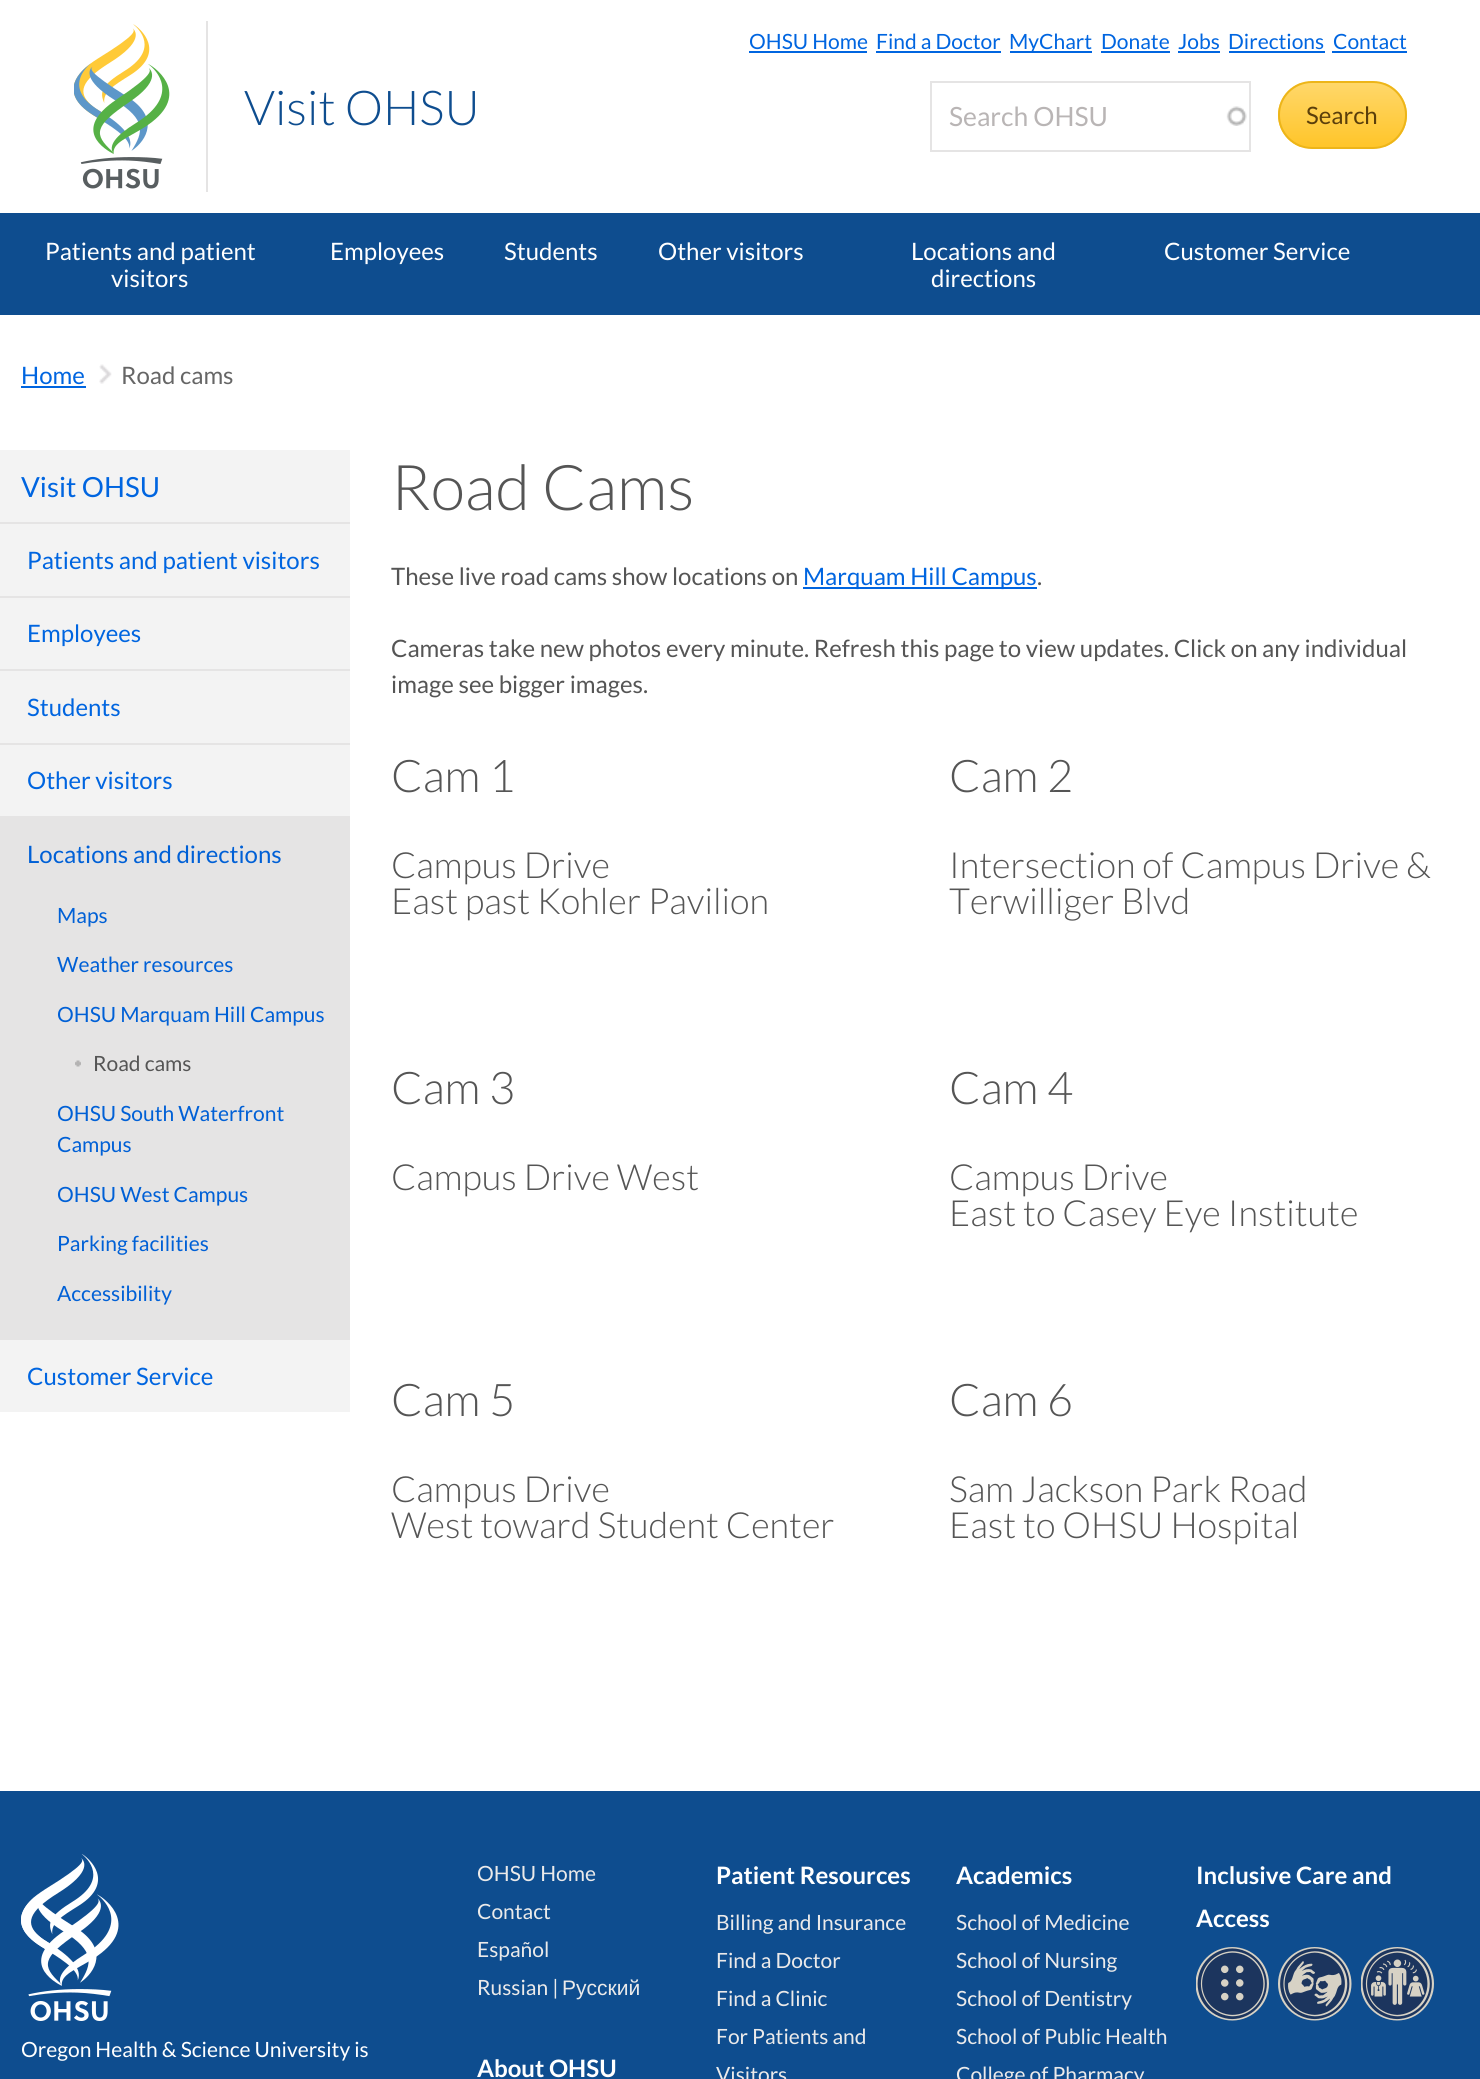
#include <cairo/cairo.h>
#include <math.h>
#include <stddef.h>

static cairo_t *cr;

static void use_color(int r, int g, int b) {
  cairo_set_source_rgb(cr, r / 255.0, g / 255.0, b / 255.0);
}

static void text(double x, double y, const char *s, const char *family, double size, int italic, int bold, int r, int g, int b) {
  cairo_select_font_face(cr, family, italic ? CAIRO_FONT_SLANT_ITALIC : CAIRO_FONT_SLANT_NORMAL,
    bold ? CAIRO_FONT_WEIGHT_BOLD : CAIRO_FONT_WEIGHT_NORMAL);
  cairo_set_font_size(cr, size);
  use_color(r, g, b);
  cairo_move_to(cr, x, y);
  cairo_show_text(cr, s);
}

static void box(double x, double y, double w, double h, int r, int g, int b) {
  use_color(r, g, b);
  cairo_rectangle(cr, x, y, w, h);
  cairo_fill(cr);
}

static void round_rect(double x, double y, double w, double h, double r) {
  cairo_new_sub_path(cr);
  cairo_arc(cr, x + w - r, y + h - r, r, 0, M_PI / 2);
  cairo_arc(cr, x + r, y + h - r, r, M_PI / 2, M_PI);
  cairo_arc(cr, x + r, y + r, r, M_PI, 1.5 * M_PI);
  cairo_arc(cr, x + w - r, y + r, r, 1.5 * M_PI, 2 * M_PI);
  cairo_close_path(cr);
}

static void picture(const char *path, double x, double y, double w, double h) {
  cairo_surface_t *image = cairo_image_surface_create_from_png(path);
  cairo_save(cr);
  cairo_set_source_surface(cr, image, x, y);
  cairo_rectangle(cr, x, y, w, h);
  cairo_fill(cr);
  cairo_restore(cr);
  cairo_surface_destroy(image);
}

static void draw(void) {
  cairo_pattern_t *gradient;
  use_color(14, 77, 143);
  cairo_paint(cr);
  box(0, 0, 1480, 213, 255, 255, 255);
  picture("img_01.png", 74, 24, 96, 165);
  box(206, 21, 2, 171, 229, 228, 228);
  box(749, 51, 118, 2, 0, 101, 224);
  box(876, 51, 125, 2, 0, 101, 224);
  box(1010, 51, 82, 2, 0, 101, 224);
  box(1101, 51, 69, 2, 0, 101, 224);
  box(1178, 51, 42, 2, 0, 101, 224);
  box(1229, 51, 96, 2, 0, 101, 224);
  box(1332, 51, 75, 2, 0, 101, 224);
  picture("img_02.png", 1226, 106, 21, 20);
  cairo_rectangle(cr, 931, 82, 319, 69);
  use_color(229, 228, 228);
  cairo_stroke(cr);
  cairo_save(cr);
  round_rect(1278, 81, 129, 68, 34);
  cairo_clip(cr);
  gradient = cairo_pattern_create_linear(1343, 83, 1343, 147);
  cairo_pattern_add_color_stop_rgba(gradient, 0, 1, 0.843, 0.412, 1);
  cairo_pattern_add_color_stop_rgba(gradient, 1, 1, 0.773, 0.161, 1);
  cairo_set_source(cr, gradient);
  cairo_pattern_destroy(gradient);
  cairo_rectangle(cr, 1278, 83, 129, 64);
  cairo_fill(cr);
  cairo_restore(cr);
  round_rect(1279, 82, 127, 66, 33);
  use_color(237, 181, 25);
  cairo_stroke(cr);
  box(0, 315, 1480, 1476, 255, 255, 255);
  box(21, 386, 65, 2, 0, 101, 224);
  picture("img_03.png", 99, 364, 13, 20);
  box(0, 450, 350, 72, 243, 243, 243);
  box(0, 522, 350, 2, 229, 228, 228);
  box(0, 524, 350, 72, 243, 243, 243);
  box(0, 598, 350, 71, 243, 243, 243);
  box(0, 596, 350, 2, 229, 228, 228);
  box(0, 671, 350, 72, 243, 243, 243);
  box(0, 669, 350, 2, 229, 228, 228);
  box(0, 745, 350, 71, 243, 243, 243);
  box(0, 743, 350, 2, 229, 228, 228);
  box(0, 816, 350, 524, 229, 228, 228);
  picture("img_04.png", 75, 1060, 6, 7);
  box(0, 1340, 350, 72, 243, 243, 243);
  box(803, 587, 234, 2, 0, 101, 224);
  picture("img_05.png", 21, 1854, 98, 167);
  picture("img_06.png", 1196, 1947, 73, 74);
  picture("img_07.png", 1278, 1947, 74, 74);
  picture("img_08.png", 1361, 1947, 73, 74);
  text(244, 125, "Visit OHSU", "Lato Light", 48, 0, 0, 14, 77, 143);
  text(749, 49, "OHSU Home", "Lato", 21, 0, 0, 0, 101, 224);
  text(876, 49, "Find a Doctor", "Lato", 21, 0, 0, 0, 101, 224);
  text(1009, 49, "MyChart", "Lato", 21, 0, 0, 0, 101, 224);
  text(1101, 49, "Donate", "Lato", 21, 0, 0, 0, 101, 224);
  text(1178, 49, "Jobs", "Lato", 21, 0, 0, 0, 101, 224);
  text(1228, 49, "Directions", "Lato", 21, 0, 0, 0, 101, 224);
  text(1333, 49, "Contact", "Lato", 21, 0, 0, 0, 101, 224);
  text(949, 126, "Search OHSU", "Lato", 26.5, 0, 0, 185, 181, 181);
  text(1306, 124, "Search", "Lato", 24, 0, 0, 91, 63, 11);
  text(45, 260, "Patients and patient", "Lato", 24, 0, 0, 255, 255, 255);
  text(111, 287, "visitors", "Lato", 24, 0, 0, 255, 255, 255);
  text(330, 260, "Employees", "Lato", 24, 0, 0, 255, 255, 255);
  text(504, 260, "Students", "Lato", 24, 0, 0, 255, 255, 255);
  text(658, 260, "Other visitors", "Lato", 24, 0, 0, 255, 255, 255);
  text(911, 260, "Locations and", "Lato", 24, 0, 0, 255, 255, 255);
  text(931, 287, "directions", "Lato", 24, 0, 0, 255, 255, 255);
  text(1164, 260, "Customer Service", "Lato", 24, 0, 0, 255, 255, 255);
  text(21, 384, "Home", "Lato", 24, 0, 0, 0, 101, 224);
  text(121, 384, "Road cams", "Lato", 24, 0, 0, 102, 102, 102);
  text(21, 497, "Visit OHSU", "Lato", 27.75, 0, 0, 0, 101, 224);
  text(27, 569, "Patients and patient visitors", "Lato", 24, 0, 0, 0, 101, 224);
  text(27, 642, "Employees", "Lato", 24, 0, 0, 0, 101, 224);
  text(27, 716, "Students", "Lato", 24, 0, 0, 0, 101, 224);
  text(27, 789, "Other visitors", "Lato", 24, 0, 0, 0, 101, 224);
  text(27, 863, "Locations and directions", "Lato", 24, 0, 0, 0, 96, 214);
  text(57, 923, "Maps", "Lato", 21, 0, 0, 0, 96, 214);
  text(57, 972, "Weather resources", "Lato", 21, 0, 0, 0, 96, 214);
  text(57, 1022, "OHSU Marquam Hill Campus", "Lato", 21, 0, 0, 0, 96, 214);
  text(93, 1071, "Road cams", "Lato", 21, 0, 0, 85, 85, 85);
  text(57, 1121, "OHSU South Waterfront", "Lato", 21, 0, 0, 0, 96, 214);
  text(57, 1152, "Campus", "Lato", 21, 0, 0, 0, 96, 214);
  text(57, 1202, "OHSU West Campus", "Lato", 21, 0, 0, 0, 96, 214);
  text(57, 1251, "Parking facilities", "Lato", 21, 0, 0, 0, 96, 214);
  text(57, 1301, "Accessibility", "Lato", 21, 0, 0, 0, 96, 214);
  text(27, 1385, "Customer Service", "Lato", 24, 0, 0, 0, 101, 224);
  text(391, 510, "Road Cams", "Lato Light", 63, 0, 0, 85, 85, 85);
  text(391, 585, "These live road cams show locations on", "Lato", 24, 0, 0, 85, 85, 85);
  text(803, 585, "Marquam Hill Campus", "Lato", 24, 0, 0, 0, 101, 224);
  text(1037, 585, ".", "Lato", 24, 0, 0, 85, 85, 85);
  text(391, 657, "Cameras take new photos every minute. Refresh this page to view updates. Click on any individual", "Lato", 24, 0, 0, 85, 85, 85);
  text(391, 693, "image see bigger images.", "Lato", 24, 0, 0, 85, 85, 85);
  text(391, 792, "Cam 1", "Lato Light", 45, 0, 0, 85, 85, 85);
  text(391, 878, "Campus Drive", "Lato Light", 36, 0, 0, 85, 85, 85);
  text(391, 914, "East past Kohler Pavilion", "Lato Light", 36, 0, 0, 85, 85, 85);
  text(949, 792, "Cam 2", "Lato Light", 45, 0, 0, 85, 85, 85);
  text(949, 878, "Intersection of Campus Drive &", "Lato Light", 36, 0, 0, 85, 85, 85);
  text(949, 914, "Terwilliger Blvd", "Lato Light", 36, 0, 0, 85, 85, 85);
  text(391, 1104, "Cam 3", "Lato Light", 45, 0, 0, 85, 85, 85);
  text(391, 1190, "Campus Drive West", "Lato Light", 36, 0, 0, 85, 85, 85);
  text(949, 1104, "Cam 4", "Lato Light", 45, 0, 0, 85, 85, 85);
  text(949, 1190, "Campus Drive", "Lato Light", 36, 0, 0, 85, 85, 85);
  text(949, 1226, "East to Casey Eye Institute", "Lato Light", 36, 0, 0, 85, 85, 85);
  text(391, 1416, "Cam 5", "Lato Light", 45, 0, 0, 85, 85, 85);
  text(391, 1502, "Campus Drive", "Lato Light", 36, 0, 0, 85, 85, 85);
  text(391, 1538, "West toward Student Center", "Lato Light", 36, 0, 0, 85, 85, 85);
  text(949, 1416, "Cam 6", "Lato Light", 45, 0, 0, 85, 85, 85);
  text(949, 1502, "Sam Jackson Park Road", "Lato Light", 36, 0, 0, 85, 85, 85);
  text(949, 1538, "East to OHSU Hospital", "Lato Light", 36, 0, 0, 85, 85, 85);
  text(21, 2057, "Oregon Health & Science University is", "Lato", 21, 0, 0, 255, 255, 255);
  text(477, 1881, "OHSU Home", "Lato", 21, 0, 0, 235, 234, 234);
  text(477, 1919, "Contact", "Lato", 21, 0, 0, 235, 234, 234);
  text(477, 1957, "Español", "Lato", 21, 0, 0, 235, 234, 234);
  text(477, 1995, "Russian |", "Lato", 21, 0, 0, 235, 234, 234);
  text(562, 1995, "Русский", "Liberation Sans", 21, 0, 0, 235, 234, 234);
  text(477, 2077, "About OHSU", "Lato", 24, 0, 1, 255, 255, 255);
  text(716, 1884, "Patient Resources", "Lato", 24, 0, 1, 255, 255, 255);
  text(716, 1930, "Billing and Insurance", "Lato", 21, 0, 0, 235, 234, 234);
  text(716, 1968, "Find a Doctor", "Lato", 21, 0, 0, 235, 234, 234);
  text(716, 2006, "Find a Clinic", "Lato", 21, 0, 0, 235, 234, 234);
  text(716, 2044, "For Patients and", "Lato", 21, 0, 0, 235, 234, 234);
  text(716, 2082, "Visitors", "Lato", 21, 0, 0, 235, 234, 234);
  text(956, 1884, "Academics", "Lato", 24, 0, 1, 255, 255, 255);
  text(956, 1930, "School of Medicine", "Lato", 21, 0, 0, 235, 234, 234);
  text(956, 1968, "School of Nursing", "Lato", 21, 0, 0, 235, 234, 234);
  text(956, 2006, "School of Dentistry", "Lato", 21, 0, 0, 235, 234, 234);
  text(956, 2044, "School of Public Health", "Lato", 21, 0, 0, 235, 234, 234);
  text(956, 2082, "College of Pharmacy", "Lato", 21, 0, 0, 235, 234, 234);
  text(1196, 1884, "Inclusive Care and", "Lato", 24, 0, 1, 255, 255, 255);
  text(1196, 1927, "Access", "Lato", 24, 0, 1, 255, 255, 255);
}

int main(void) {
  cairo_surface_t *surface = cairo_image_surface_create(CAIRO_FORMAT_RGB24, 1480, 2079);
  cr = cairo_create(surface);
  cairo_font_options_t *options = cairo_font_options_create();
  cairo_font_options_set_hint_metrics(options, CAIRO_HINT_METRICS_OFF);
  cairo_font_options_set_hint_style(options, CAIRO_HINT_STYLE_NONE);
  cairo_set_font_options(cr, options);
  cairo_set_miter_limit(cr, 4);
  draw();
  cairo_surface_write_to_png(surface, "out.png");
  cairo_font_options_destroy(options);
  cairo_destroy(cr);
  cairo_surface_destroy(surface);
  return 0;
}
